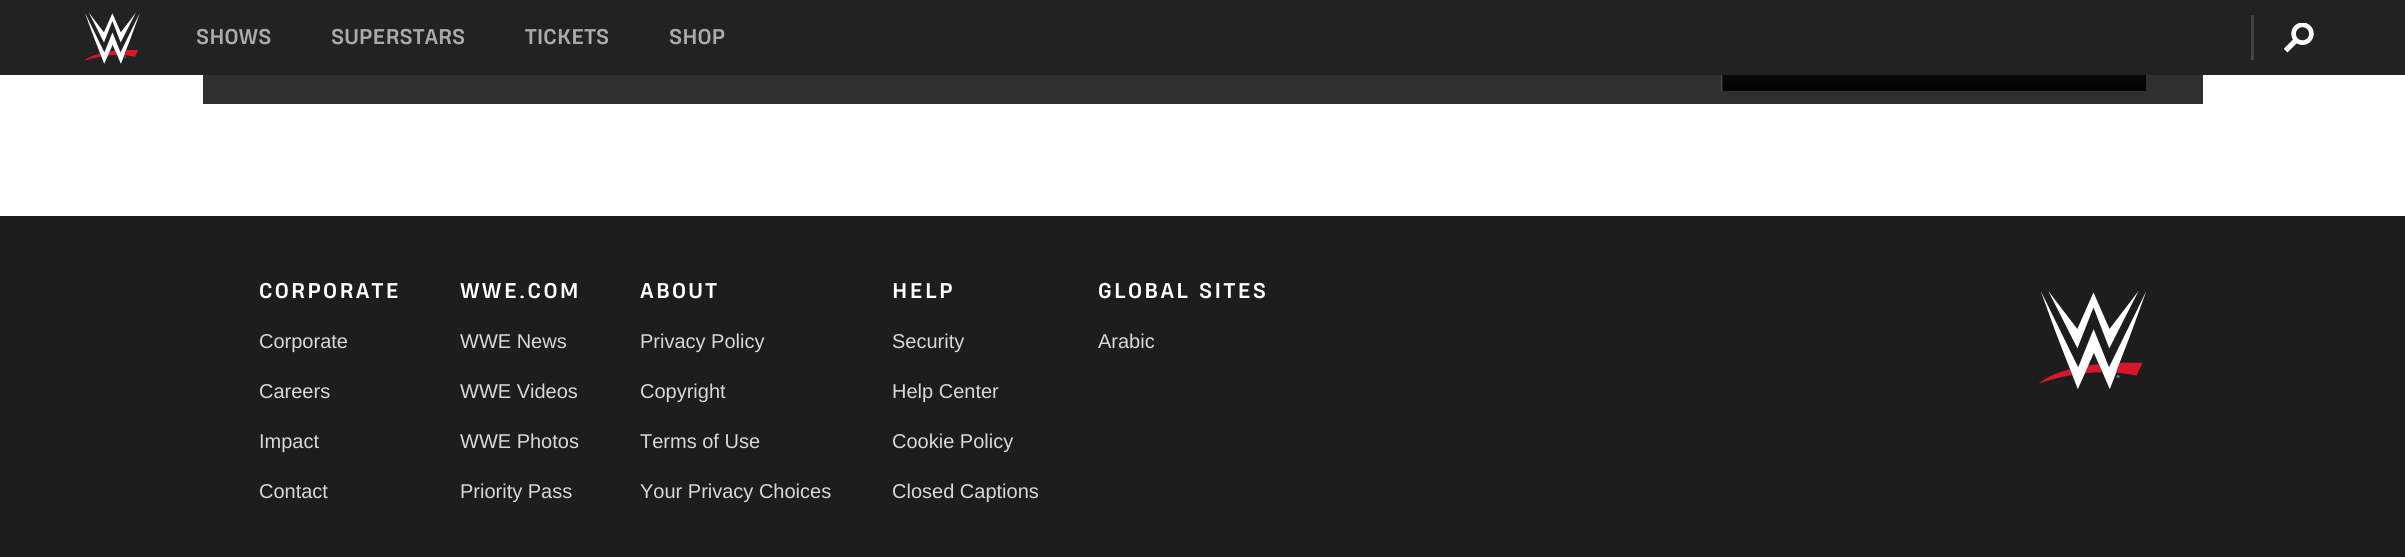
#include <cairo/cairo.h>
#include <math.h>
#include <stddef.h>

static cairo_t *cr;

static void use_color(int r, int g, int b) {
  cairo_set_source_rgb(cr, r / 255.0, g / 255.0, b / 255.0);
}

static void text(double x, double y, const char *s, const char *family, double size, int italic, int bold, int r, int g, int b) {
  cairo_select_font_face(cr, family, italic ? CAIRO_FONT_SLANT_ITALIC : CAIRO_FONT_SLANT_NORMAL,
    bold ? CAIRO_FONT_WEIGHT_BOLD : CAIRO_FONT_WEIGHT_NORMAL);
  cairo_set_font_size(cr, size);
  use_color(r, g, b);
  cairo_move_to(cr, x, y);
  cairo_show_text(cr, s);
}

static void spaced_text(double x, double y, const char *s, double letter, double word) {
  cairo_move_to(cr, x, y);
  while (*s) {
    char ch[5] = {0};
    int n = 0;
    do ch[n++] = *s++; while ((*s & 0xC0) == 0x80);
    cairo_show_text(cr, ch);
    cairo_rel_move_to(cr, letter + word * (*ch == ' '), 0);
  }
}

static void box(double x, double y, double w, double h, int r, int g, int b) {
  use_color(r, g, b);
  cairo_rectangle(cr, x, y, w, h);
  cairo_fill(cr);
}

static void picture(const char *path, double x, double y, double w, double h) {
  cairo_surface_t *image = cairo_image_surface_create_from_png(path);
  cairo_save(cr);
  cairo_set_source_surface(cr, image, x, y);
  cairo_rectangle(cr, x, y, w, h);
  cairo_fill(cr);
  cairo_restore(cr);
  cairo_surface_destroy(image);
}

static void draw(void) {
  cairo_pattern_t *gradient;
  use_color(255, 255, 255);
  cairo_paint(cr);
  box(0, 0, 2405, 75, 34, 34, 34);
  picture("img_01.png", 84, 12, 56, 52);
  box(2251, 15, 3, 45, 68, 68, 68);
  picture("img_02.png", 2284, 23, 30, 30);
  box(203, 75, 2000, 29, 48, 48, 48);
  box(1722, 75, 1, 16, 27, 27, 27);
  box(1721, 75, 1, 16, 71, 71, 71);
  gradient = cairo_pattern_create_linear(1934, 41, 1934, 91);
  cairo_pattern_add_color_stop_rgba(gradient, 0, 0.106, 0.106, 0.106, 1);
  cairo_pattern_add_color_stop_rgba(gradient, 1, 0.004, 0.004, 0.004, 1);
  cairo_set_source(cr, gradient);
  cairo_pattern_destroy(gradient);
  cairo_rectangle(cr, 1723, 75, 423, 16);
  cairo_fill(cr);
  box(0, 216, 2405, 341, 29, 29, 29);
  picture("img_03.png", 2039, 291, 107, 98);
  text(196, 44, "SHOWS", "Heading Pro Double", 20, 0, 1, 170, 170, 170);
  text(331, 44, "SUPERSTARS", "Heading Pro Double", 20, 0, 1, 170, 170, 170);
  text(525, 44, "TICKETS", "Heading Pro Double", 20, 0, 1, 170, 170, 170);
  text(669, 44, "SHOP", "Heading Pro Double", 20, 0, 1, 170, 170, 170);
  use_color(255, 255, 255);
  spaced_text(259, 298, "CORPORATE", 2.25, 0);
  text(259, 348, "Corporate", "Liberation Sans", 20, 0, 0, 216, 216, 216);
  text(259, 398, "Careers", "Liberation Sans", 20, 0, 0, 216, 216, 216);
  text(259, 448, "Impact", "Liberation Sans", 20, 0, 0, 216, 216, 216);
  text(259, 498, "Contact", "Liberation Sans", 20, 0, 0, 216, 216, 216);
  cairo_select_font_face(cr, "Heading Pro Double", CAIRO_FONT_SLANT_NORMAL, CAIRO_FONT_WEIGHT_BOLD);
  use_color(255, 255, 255);
  spaced_text(460, 298, "WWE.COM", 2.25, 0);
  text(460, 348, "WWE News", "Liberation Sans", 20, 0, 0, 216, 216, 216);
  text(460, 398, "WWE Videos", "Liberation Sans", 20, 0, 0, 216, 216, 216);
  text(460, 448, "WWE Photos", "Liberation Sans", 20, 0, 0, 216, 216, 216);
  text(460, 498, "Priority Pass", "Liberation Sans", 20, 0, 0, 216, 216, 216);
  cairo_select_font_face(cr, "Heading Pro Double", CAIRO_FONT_SLANT_NORMAL, CAIRO_FONT_WEIGHT_BOLD);
  use_color(255, 255, 255);
  spaced_text(640, 298, "ABOUT", 2.25, 0);
  text(640, 348, "Privacy Policy", "Liberation Sans", 20, 0, 0, 216, 216, 216);
  text(640, 398, "Copyright", "Liberation Sans", 20, 0, 0, 216, 216, 216);
  text(640, 448, "Terms of Use", "Liberation Sans", 20, 0, 0, 216, 216, 216);
  text(640, 498, "Your Privacy Choices", "Liberation Sans", 20, 0, 0, 216, 216, 216);
  cairo_select_font_face(cr, "Heading Pro Double", CAIRO_FONT_SLANT_NORMAL, CAIRO_FONT_WEIGHT_BOLD);
  use_color(255, 255, 255);
  spaced_text(892, 298, "HELP", 2.25, 0);
  text(892, 348, "Security", "Liberation Sans", 20, 0, 0, 216, 216, 216);
  text(892, 398, "Help Center", "Liberation Sans", 20, 0, 0, 216, 216, 216);
  text(892, 448, "Cookie Policy", "Liberation Sans", 20, 0, 0, 216, 216, 216);
  text(892, 498, "Closed Captions", "Liberation Sans", 20, 0, 0, 216, 216, 216);
  cairo_select_font_face(cr, "Heading Pro Double", CAIRO_FONT_SLANT_NORMAL, CAIRO_FONT_WEIGHT_BOLD);
  use_color(255, 255, 255);
  spaced_text(1098, 298, "GLOBAL SITES", 2.25, 0);
  text(1098, 348, "Arabic", "Liberation Sans", 20, 0, 0, 216, 216, 216);
}

int main(void) {
  cairo_surface_t *surface = cairo_image_surface_create(CAIRO_FORMAT_RGB24, 2405, 557);
  cr = cairo_create(surface);
  cairo_font_options_t *options = cairo_font_options_create();
  cairo_font_options_set_hint_metrics(options, CAIRO_HINT_METRICS_OFF);
  cairo_font_options_set_hint_style(options, CAIRO_HINT_STYLE_NONE);
  cairo_set_font_options(cr, options);
  cairo_set_miter_limit(cr, 4);
  draw();
  cairo_surface_write_to_png(surface, "out.png");
  cairo_font_options_destroy(options);
  cairo_destroy(cr);
  cairo_surface_destroy(surface);
  return 0;
}
